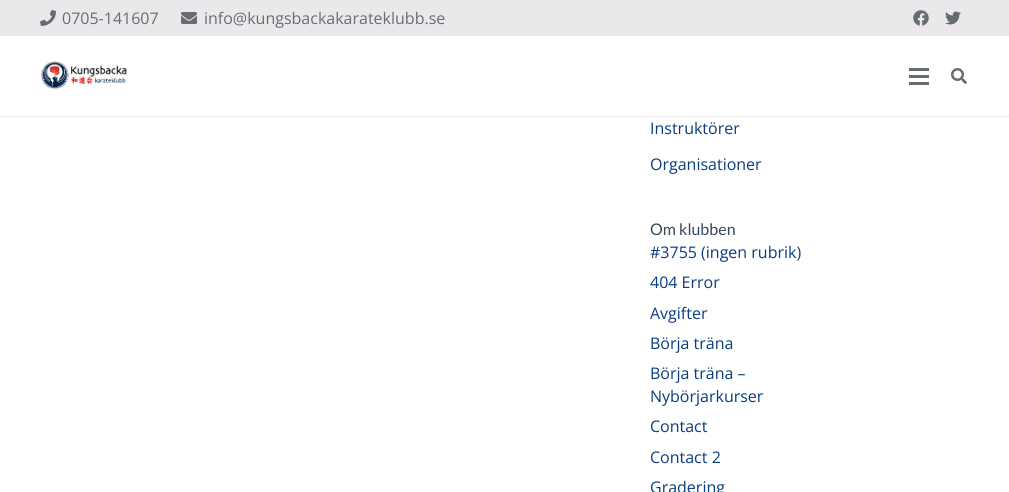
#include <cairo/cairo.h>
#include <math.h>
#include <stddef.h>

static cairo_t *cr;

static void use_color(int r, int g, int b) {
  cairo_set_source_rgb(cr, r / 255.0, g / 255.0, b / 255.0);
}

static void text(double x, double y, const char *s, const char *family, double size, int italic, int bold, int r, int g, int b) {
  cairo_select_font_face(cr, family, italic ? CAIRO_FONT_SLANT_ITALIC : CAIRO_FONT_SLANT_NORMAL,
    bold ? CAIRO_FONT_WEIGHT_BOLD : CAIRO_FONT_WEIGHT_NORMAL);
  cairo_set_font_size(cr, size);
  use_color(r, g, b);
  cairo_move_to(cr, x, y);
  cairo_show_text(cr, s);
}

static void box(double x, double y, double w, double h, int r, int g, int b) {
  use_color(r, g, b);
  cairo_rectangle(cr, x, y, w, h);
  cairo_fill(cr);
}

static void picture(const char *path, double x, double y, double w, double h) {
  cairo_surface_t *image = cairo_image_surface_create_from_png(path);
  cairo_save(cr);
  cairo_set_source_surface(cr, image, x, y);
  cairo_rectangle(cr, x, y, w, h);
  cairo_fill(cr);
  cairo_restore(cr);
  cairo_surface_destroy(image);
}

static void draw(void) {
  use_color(255, 255, 255);
  cairo_paint(cr);
  box(0, 0, 1009, 36, 235, 232, 235);
  picture("img_01.png", 40, 10, 16, 16);
  picture("img_02.png", 181, 12, 16, 12);
  picture("img_03.png", 913, 10, 16, 16);
  picture("img_04.png", 945, 11, 16, 14);
  box(0, 116, 1009, 1, 235, 235, 235);
  picture("img_05.png", 41, 61, 86, 29);
  box(909, 75, 20, 3, 102, 109, 112);
  box(909, 68, 20, 3, 102, 109, 112);
  box(909, 82, 20, 3, 102, 109, 112);
  picture("img_06.png", 951, 68, 16, 16);
  text(62, 24, "0705-141607", "Open Sans", 16, 0, 0, 102, 109, 112);
  text(204, 24, "info@kungsbackakarateklubb.se", "Open Sans", 16, 0, 0, 102, 109, 112);
  text(650, 134, "Instruktörer", "Open Sans", 16, 0, 0, 10, 61, 128);
  text(650, 170, "Organisationer", "Open Sans", 16, 0, 0, 10, 61, 128);
  text(650, 235, "Om klubben", "Lato", 16, 0, 0, 52, 73, 94);
  text(650, 258, "#3755 (ingen rubrik)", "Open Sans", 16, 0, 0, 10, 61, 128);
  text(650, 288, "404 Error", "Open Sans", 16, 0, 0, 10, 61, 128);
  text(650, 319, "Avgifter", "Open Sans", 16, 0, 0, 10, 61, 128);
  text(650, 349, "Börja träna", "Open Sans", 16, 0, 0, 10, 61, 128);
  text(650, 379, "Börja träna –", "Open Sans", 16, 0, 0, 10, 61, 128);
  text(650, 402, "Nybörjarkurser", "Open Sans", 16, 0, 0, 10, 61, 128);
  text(650, 432, "Contact", "Open Sans", 16, 0, 0, 10, 61, 128);
  text(650, 463, "Contact 2", "Open Sans", 16, 0, 0, 10, 61, 128);
  text(650, 493, "Gradering", "Open Sans", 16, 0, 0, 10, 61, 128);
}

int main(void) {
  cairo_surface_t *surface = cairo_image_surface_create(CAIRO_FORMAT_RGB24, 1009, 492);
  cr = cairo_create(surface);
  cairo_font_options_t *options = cairo_font_options_create();
  cairo_font_options_set_hint_metrics(options, CAIRO_HINT_METRICS_OFF);
  cairo_font_options_set_hint_style(options, CAIRO_HINT_STYLE_NONE);
  cairo_set_font_options(cr, options);
  cairo_set_miter_limit(cr, 4);
  draw();
  cairo_surface_write_to_png(surface, "out.png");
  cairo_font_options_destroy(options);
  cairo_destroy(cr);
  cairo_surface_destroy(surface);
  return 0;
}
